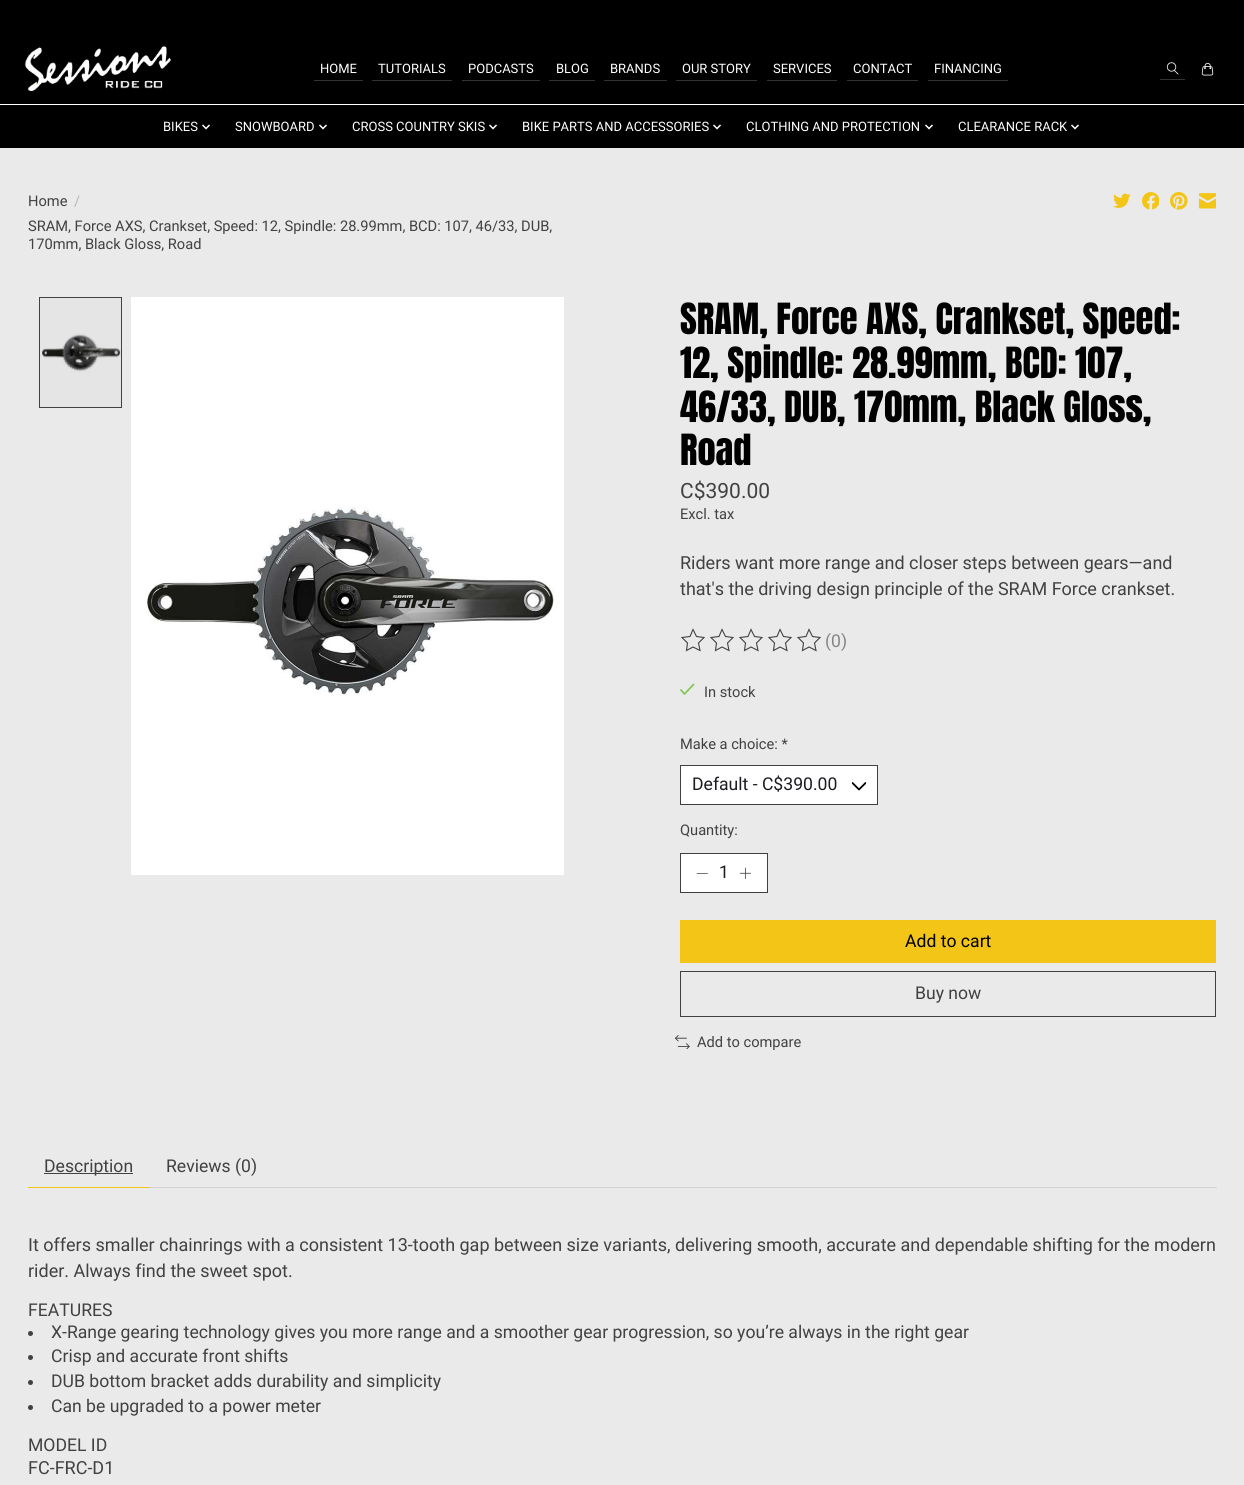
#include <cairo/cairo.h>
#include <math.h>
#include <stddef.h>

static cairo_t *cr;

static void use_color(int r, int g, int b) {
  cairo_set_source_rgb(cr, r / 255.0, g / 255.0, b / 255.0);
}

static void text(double x, double y, const char *s, const char *family, double size, int italic, int bold, int r, int g, int b) {
  cairo_select_font_face(cr, family, italic ? CAIRO_FONT_SLANT_ITALIC : CAIRO_FONT_SLANT_NORMAL,
    bold ? CAIRO_FONT_WEIGHT_BOLD : CAIRO_FONT_WEIGHT_NORMAL);
  cairo_set_font_size(cr, size);
  use_color(r, g, b);
  cairo_move_to(cr, x, y);
  cairo_show_text(cr, s);
}

static void box(double x, double y, double w, double h, int r, int g, int b) {
  use_color(r, g, b);
  cairo_rectangle(cr, x, y, w, h);
  cairo_fill(cr);
}

static void picture(const char *path, double x, double y, double w, double h) {
  cairo_surface_t *image = cairo_image_surface_create_from_png(path);
  cairo_save(cr);
  cairo_set_source_surface(cr, image, x, y);
  cairo_rectangle(cr, x, y, w, h);
  cairo_fill(cr);
  cairo_restore(cr);
  cairo_surface_destroy(image);
}

static void draw(void) {
  use_color(234, 234, 234);
  cairo_paint(cr);
  box(0, 0, 1244, 104, 0, 0, 0);
  picture("img_01.png", 24, 46, 147, 45);
  box(314, 80, 49, 1, 51, 51, 51);
  box(372, 80, 80, 1, 51, 51, 51);
  box(462, 80, 78, 1, 51, 51, 51);
  box(549, 80, 46, 1, 51, 51, 51);
  box(604, 80, 63, 1, 51, 51, 51);
  box(676, 80, 81, 1, 51, 51, 51);
  box(767, 80, 70, 1, 51, 51, 51);
  box(847, 80, 71, 1, 51, 51, 51);
  box(928, 80, 80, 1, 51, 51, 51);
  box(1160, 79, 25, 1, 51, 51, 51);
  picture("img_02.png", 1166, 62, 13, 13);
  picture("img_03.png", 1201, 63, 13, 13);
  box(0, 105, 1244, 43, 0, 0, 0);
  box(0, 104, 1244, 1, 255, 255, 255);
  picture("img_04.png", 202, 124, 8, 6);
  picture("img_04.png", 319, 124, 8, 6);
  picture("img_04.png", 489, 124, 8, 6);
  picture("img_04.png", 713, 124, 8, 6);
  picture("img_04.png", 925, 124, 8, 6);
  picture("img_04.png", 1071, 124, 8, 6);
  picture("img_05.png", 1113, 193, 18, 15);
  picture("img_06.png", 1142, 192, 17, 18);
  picture("img_07.png", 1170, 192, 18, 18);
  picture("img_08.png", 1199, 193, 17, 16);
  picture("img_09.png", 40, 298, 81, 109);
  cairo_rectangle(cr, 39.5, 297.5, 82, 110);
  use_color(65, 65, 65);
  cairo_set_line_width(cr, 1);
  cairo_stroke(cr);
  picture("img_10.png", 131, 297, 433, 578);
  cairo_new_path(cr);
  cairo_move_to(cr, 693, 629.5);
  cairo_line_to(cr, 696.5, 636.5);
  cairo_line_to(cr, 704, 637.5);
  cairo_line_to(cr, 698.5, 643);
  cairo_line_to(cr, 700, 650.5);
  cairo_line_to(cr, 693, 647);
  cairo_line_to(cr, 686.5, 650.5);
  cairo_line_to(cr, 687.5, 643);
  cairo_line_to(cr, 682, 637.5);
  cairo_line_to(cr, 690, 636.5);
  cairo_close_path(cr);
  cairo_move_to(cr, 722, 629.5);
  cairo_line_to(cr, 725.5, 636.5);
  cairo_line_to(cr, 733, 637.5);
  cairo_line_to(cr, 727.5, 643);
  cairo_line_to(cr, 729, 650.5);
  cairo_line_to(cr, 722, 647);
  cairo_line_to(cr, 715.5, 650.5);
  cairo_line_to(cr, 716.5, 643);
  cairo_line_to(cr, 711, 637.5);
  cairo_line_to(cr, 719, 636.5);
  cairo_close_path(cr);
  cairo_set_line_width(cr, 1.1);
  cairo_stroke(cr);
  cairo_new_path(cr);
  cairo_move_to(cr, 751, 629.5);
  cairo_line_to(cr, 754.5, 636.5);
  cairo_line_to(cr, 762, 637.5);
  cairo_line_to(cr, 756.5, 643);
  cairo_line_to(cr, 758, 650.5);
  cairo_line_to(cr, 751, 647);
  cairo_line_to(cr, 744.5, 650.5);
  cairo_line_to(cr, 745.5, 643);
  cairo_line_to(cr, 740, 637.5);
  cairo_line_to(cr, 748, 636.5);
  cairo_close_path(cr);
  cairo_move_to(cr, 780, 629.5);
  cairo_line_to(cr, 783.5, 636.5);
  cairo_line_to(cr, 791, 637.5);
  cairo_line_to(cr, 785.5, 643);
  cairo_line_to(cr, 787, 650.5);
  cairo_line_to(cr, 780, 647);
  cairo_line_to(cr, 773.5, 650.5);
  cairo_line_to(cr, 774.5, 643);
  cairo_line_to(cr, 769, 637.5);
  cairo_line_to(cr, 777, 636.5);
  cairo_close_path(cr);
  cairo_stroke(cr);
  cairo_new_path(cr);
  cairo_move_to(cr, 809, 629.5);
  cairo_line_to(cr, 812.5, 636.5);
  cairo_line_to(cr, 820, 637.5);
  cairo_line_to(cr, 814.5, 643);
  cairo_line_to(cr, 816, 650.5);
  cairo_line_to(cr, 809, 647);
  cairo_line_to(cr, 802.5, 650.5);
  cairo_line_to(cr, 803.5, 643);
  cairo_line_to(cr, 798, 637.5);
  cairo_line_to(cr, 806, 636.5);
  cairo_close_path(cr);
  cairo_stroke(cr);
  cairo_new_path(cr);
  cairo_move_to(cr, 681, 690);
  cairo_line_to(cr, 684.5, 694);
  cairo_line_to(cr, 693.5, 684.5);
  use_color(136, 197, 89);
  cairo_set_line_width(cr, 1.8);
  cairo_set_line_cap(cr, CAIRO_LINE_CAP_ROUND);
  cairo_set_line_join(cr, CAIRO_LINE_JOIN_ROUND);
  cairo_stroke(cr);
  box(681, 766, 196, 38, 255, 255, 255);
  cairo_save(cr);
  cairo_rectangle(cr, 852, 779, 14, 14);
  cairo_clip(cr);
  cairo_new_path(cr);
  cairo_move_to(cr, 865.5, 783);
  cairo_line_to(cr, 859, 789.5);
  cairo_line_to(cr, 852.5, 783);
  use_color(0, 0, 0);
  cairo_stroke(cr);
  cairo_restore(cr);
  cairo_rectangle(cr, 680.5, 765.5, 197, 39);
  use_color(65, 65, 65);
  cairo_set_line_width(cr, 1);
  cairo_set_line_cap(cr, CAIRO_LINE_CAP_BUTT);
  cairo_set_line_join(cr, CAIRO_LINE_JOIN_MITER);
  cairo_stroke(cr);
  use_color(255, 255, 255);
  cairo_rectangle(cr, 680.5, 853.5, 87, 39);
  cairo_fill_preserve(cr);
  use_color(65, 65, 65);
  cairo_stroke(cr);
  cairo_new_path(cr);
  cairo_move_to(cr, 697, 873.5);
  cairo_line_to(cr, 707.5, 873.5);
  cairo_set_line_width(cr, 0.8);
  cairo_set_line_cap(cr, CAIRO_LINE_CAP_ROUND);
  cairo_set_line_join(cr, CAIRO_LINE_JOIN_ROUND);
  cairo_stroke(cr);
  picture("img_11.png", 739, 867, 12, 12);
  box(680, 920, 536, 43, 243, 197, 23);
  cairo_rectangle(cr, 680.5, 971.5, 535, 45);
  use_color(65, 65, 65);
  cairo_set_line_width(cr, 1);
  cairo_set_line_cap(cr, CAIRO_LINE_CAP_BUTT);
  cairo_set_line_join(cr, CAIRO_LINE_JOIN_MITER);
  cairo_stroke(cr);
  picture("img_12.png", 675, 1035, 15, 14);
  box(28, 1187, 122, 1, 243, 197, 23);
  box(44, 1173, 89, 1, 65, 65, 65);
  box(150, 1187, 1067, 1, 209, 209, 209);
  use_color(65, 65, 65);
  cairo_arc(cr, 30.5, 1333.5, 2.5, 0, 2 * M_PI);
  cairo_fill(cr);
  cairo_arc(cr, 30.5, 1357.5, 2.5, 0, 2 * M_PI);
  cairo_fill(cr);
  cairo_arc(cr, 30.5, 1382.5, 2.5, 0, 2 * M_PI);
  cairo_fill(cr);
  cairo_arc(cr, 30.5, 1407.5, 2.5, 0, 2 * M_PI);
  cairo_fill(cr);
  text(320, 73, "HOME", "Roboto", 13, 0, 0, 255, 255, 255);
  text(378, 73, "TUTORIALS", "Roboto", 13, 0, 0, 255, 255, 255);
  text(468, 73, "PODCASTS", "Roboto", 13, 0, 0, 255, 255, 255);
  text(556, 73, "BLOG", "Roboto", 13, 0, 0, 255, 255, 255);
  text(610, 73, "BRANDS", "Roboto", 13, 0, 0, 255, 255, 255);
  text(682, 73, "OUR STORY", "Roboto", 13, 0, 0, 255, 255, 255);
  text(773, 73, "SERVICES", "Roboto", 13, 0, 0, 255, 255, 255);
  text(853, 73, "CONTACT", "Roboto", 13, 0, 0, 255, 255, 255);
  text(934, 73, "FINANCING", "Roboto", 13, 0, 0, 255, 255, 255);
  text(163, 131, "BIKES", "Roboto", 13, 0, 0, 255, 255, 255);
  text(235, 131, "SNOWBOARD", "Roboto", 13, 0, 0, 255, 255, 255);
  text(352, 131, "CROSS COUNTRY SKIS", "Roboto", 13, 0, 0, 255, 255, 255);
  text(522, 131, "BIKE PARTS AND ACCESSORIES", "Roboto", 13, 0, 0, 255, 255, 255);
  text(746, 131, "CLOTHING AND PROTECTION", "Roboto", 13, 0, 0, 255, 255, 255);
  text(958, 131, "CLEARANCE RACK", "Roboto", 13, 0, 0, 255, 255, 255);
  text(28, 206, "Home", "Roboto", 14.65, 0, 0, 65, 65, 65);
  text(74, 206, "/", "Roboto", 14.65, 0, 0, 183, 183, 183);
  text(28, 231, "SRAM, Force AXS, Crankset, Speed: 12, Spindle: 28.99mm, BCD: 107, 46/33, DUB,", "Roboto", 14.65, 0, 0, 65, 65, 65);
  text(28, 249, "170mm, Black Gloss, Road", "Roboto", 14.65, 0, 0, 65, 65, 65);
  text(680, 334, "SRAM, Force AXS, Crankset, Speed:", "Anton", 36.5, 0, 0, 0, 0, 0);
  text(680, 378, "12, Spindle: 28.99mm, BCD: 107,", "Anton", 36.5, 0, 0, 0, 0, 0);
  text(680, 422, "46/33, DUB, 170mm, Black Gloss,", "Anton", 36.5, 0, 0, 0, 0, 0);
  text(680, 465, "Road", "Anton", 36.5, 0, 0, 0, 0, 0);
  text(680, 498, "C$390.00", "Roboto", 21, 0, 0, 65, 65, 65);
  text(680, 519, "Excl. tax", "Roboto", 14.65, 0, 0, 65, 65, 65);
  text(680, 569, "Riders want more range and closer steps between gears—and", "Roboto", 18, 0, 0, 65, 65, 65);
  text(680, 595, "that's the driving design principle of the SRAM Force crankset.", "Roboto", 18, 0, 0, 65, 65, 65);
  text(825, 647, "(0)", "Roboto", 17.6, 0, 0, 133, 133, 133);
  text(704, 697, "In stock", "Roboto", 14.65, 0, 0, 65, 65, 65);
  text(680, 749, "Make a choice: *", "Roboto", 14.65, 0, 0, 65, 65, 65);
  text(692, 790, "Default - C$390.00", "Roboto", 17.6, 0, 0, 28, 28, 33);
  text(680, 835, "Quantity:", "Roboto", 14.65, 0, 0, 65, 65, 65);
  text(719, 878, "1", "Roboto", 17.6, 0, 0, 28, 28, 33);
  text(905, 947, "Add to cart", "Roboto", 17.6, 0, 0, 0, 0, 0);
  text(915, 999, "Buy now", "Roboto", 17.6, 0, 0, 65, 65, 65);
  text(697, 1047, "Add to compare", "Roboto", 14.65, 0, 0, 65, 65, 65);
  text(44, 1172, "Description", "Roboto", 17.6, 0, 0, 65, 65, 65);
  text(166, 1172, "Reviews (0)", "Roboto", 17.6, 0, 0, 65, 65, 65);
  text(28, 1251, "It offers smaller chainrings with a consistent 13-tooth gap between size variants, delivering smooth, accurate and dependable shifting for the modern", "Roboto", 18, 0, 0, 65, 65, 65);
  text(28, 1277, "rider. Always find the sweet spot.", "Roboto", 18, 0, 0, 65, 65, 65);
  text(28, 1316, "FEATURES", "Roboto", 17.6, 0, 0, 65, 65, 65);
  text(51, 1338, "X-Range gearing technology gives you more range and a smoother gear progression, so you’re always in the right gear", "Roboto", 17.6, 0, 0, 65, 65, 65);
  text(51, 1362, "Crisp and accurate front shifts", "Roboto", 17.6, 0, 0, 65, 65, 65);
  text(51, 1387, "DUB bottom bracket adds durability and simplicity", "Roboto", 17.6, 0, 0, 65, 65, 65);
  text(51, 1412, "Can be upgraded to a power meter", "Roboto", 17.6, 0, 0, 65, 65, 65);
  text(28, 1451, "MODEL ID", "Roboto", 17.6, 0, 0, 65, 65, 65);
  text(28, 1474, "FC-FRC-D1", "Roboto", 18, 0, 0, 65, 65, 65);
}

int main(void) {
  cairo_surface_t *surface = cairo_image_surface_create(CAIRO_FORMAT_RGB24, 1244, 1485);
  cr = cairo_create(surface);
  cairo_font_options_t *options = cairo_font_options_create();
  cairo_font_options_set_hint_metrics(options, CAIRO_HINT_METRICS_OFF);
  cairo_font_options_set_hint_style(options, CAIRO_HINT_STYLE_NONE);
  cairo_set_font_options(cr, options);
  cairo_set_miter_limit(cr, 4);
  draw();
  cairo_surface_write_to_png(surface, "out.png");
  cairo_font_options_destroy(options);
  cairo_destroy(cr);
  cairo_surface_destroy(surface);
  return 0;
}
